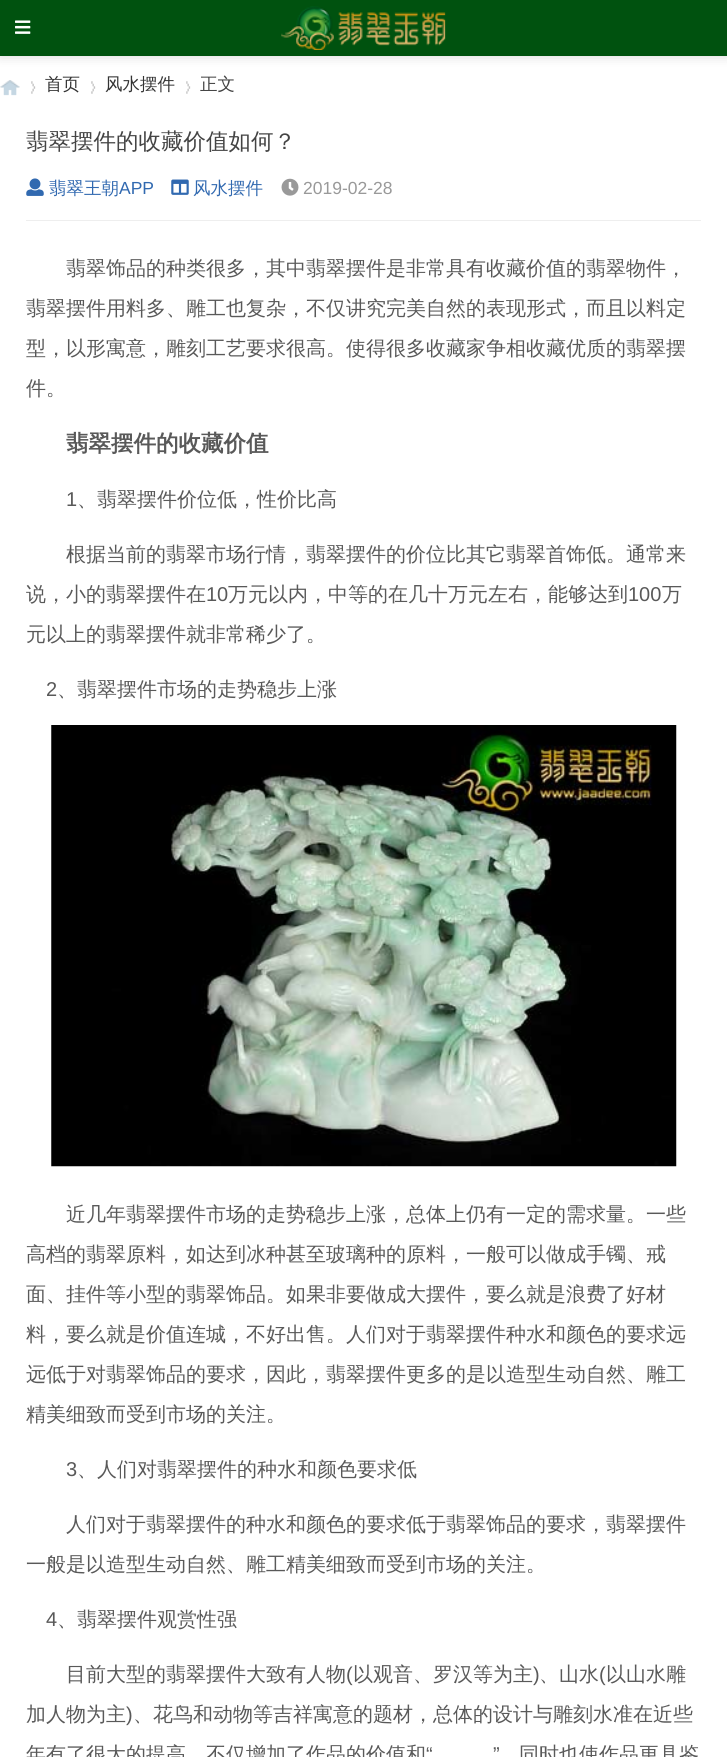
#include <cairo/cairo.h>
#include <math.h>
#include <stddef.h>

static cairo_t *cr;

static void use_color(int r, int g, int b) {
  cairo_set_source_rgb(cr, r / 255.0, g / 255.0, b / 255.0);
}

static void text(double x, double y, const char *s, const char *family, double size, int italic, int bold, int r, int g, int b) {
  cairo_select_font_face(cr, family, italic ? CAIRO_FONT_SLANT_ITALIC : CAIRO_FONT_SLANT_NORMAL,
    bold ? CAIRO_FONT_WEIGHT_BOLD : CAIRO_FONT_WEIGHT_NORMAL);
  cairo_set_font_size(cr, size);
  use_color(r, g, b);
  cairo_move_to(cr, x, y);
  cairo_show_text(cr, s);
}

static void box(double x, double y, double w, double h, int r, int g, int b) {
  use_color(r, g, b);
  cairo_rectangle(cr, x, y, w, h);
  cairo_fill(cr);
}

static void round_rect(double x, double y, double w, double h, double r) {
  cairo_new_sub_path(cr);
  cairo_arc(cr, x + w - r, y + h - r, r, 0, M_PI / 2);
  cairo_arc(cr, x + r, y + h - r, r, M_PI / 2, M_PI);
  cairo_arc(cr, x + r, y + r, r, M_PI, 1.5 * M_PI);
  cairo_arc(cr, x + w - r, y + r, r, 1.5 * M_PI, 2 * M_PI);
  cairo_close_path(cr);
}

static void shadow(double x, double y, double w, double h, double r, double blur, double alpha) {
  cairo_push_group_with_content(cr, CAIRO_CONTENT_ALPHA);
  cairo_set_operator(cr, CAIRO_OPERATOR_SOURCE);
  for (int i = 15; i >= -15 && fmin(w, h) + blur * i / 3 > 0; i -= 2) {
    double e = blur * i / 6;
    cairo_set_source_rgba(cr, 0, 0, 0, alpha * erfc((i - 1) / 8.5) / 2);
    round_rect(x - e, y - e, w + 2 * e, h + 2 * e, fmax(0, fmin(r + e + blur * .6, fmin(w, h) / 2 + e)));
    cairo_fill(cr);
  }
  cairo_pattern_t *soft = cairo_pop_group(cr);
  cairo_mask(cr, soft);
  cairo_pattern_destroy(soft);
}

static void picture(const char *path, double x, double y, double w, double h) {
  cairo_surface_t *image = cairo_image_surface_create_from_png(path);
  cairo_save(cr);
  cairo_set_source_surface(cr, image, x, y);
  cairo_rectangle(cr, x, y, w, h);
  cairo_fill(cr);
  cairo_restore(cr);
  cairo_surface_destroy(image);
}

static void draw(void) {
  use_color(255, 255, 255);
  cairo_paint(cr);
  use_color(0, 0, 0);
  shadow(0, 0, 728, 56, 0, 6, 0.15);
  box(0, 0, 727, 56, 0, 82, 15);
  picture("img_01.png", 15, 20, 16, 14);
  picture("img_02.png", 281, 6, 165, 44);
  picture("img_03.png", 0, 80, 20, 16);
  picture("img_04.png", 31, 81, 5, 13);
  picture("img_05.png", 91, 81, 5, 13);
  picture("img_04.png", 186, 81, 5, 13);
  box(26, 220, 675, 1, 238, 238, 238);
  picture("img_06.png", 26, 178, 18, 18);
  picture("img_07.png", 171, 179, 18, 16);
  picture("img_08.png", 281, 178, 18, 18);
  picture("img_09.png", 51, 725, 626, 442);
  text(45, 90, "首页", "WenQuanYi Zen Hei Medium", 17.5, 0, 0, 51, 51, 51);
  text(105, 90, "风水摆件", "WenQuanYi Zen Hei Medium", 17.5, 0, 0, 51, 51, 51);
  text(200, 90, "正文", "WenQuanYi Zen Hei Medium", 17.5, 0, 0, 68, 68, 68);
  text(26, 149, "翡翠摆件的收藏价值如何？", "WenQuanYi Zen Hei Medium", 22.5, 0, 0, 68, 68, 68);
  text(49, 194, "翡翠王朝", "WenQuanYi Zen Hei Medium", 17.5, 0, 0, 49, 105, 176);
  text(119, 194, "APP", "Liberation Sans", 17.5, 0, 0, 49, 105, 176);
  text(193, 194, "风水摆件", "WenQuanYi Zen Hei Medium", 17.5, 0, 0, 49, 105, 176);
  text(303, 194, "2019-02-28", "Liberation Sans", 17.5, 0, 0, 153, 153, 153);
  text(66, 275, "翡翠饰品的种类很多，其中翡翠摆件是非常具有收藏价值的翡翠物件，", "WenQuanYi Zen Hei Medium", 20, 0, 0, 89, 89, 89);
  text(26, 315, "翡翠摆件用料多、雕工也复杂，不仅讲究完美自然的表现形式，而且以料定", "WenQuanYi Zen Hei Medium", 20, 0, 0, 89, 89, 89);
  text(26, 355, "型，以形寓意，雕刻工艺要求很高。使得很多收藏家争相收藏优质的翡翠摆", "WenQuanYi Zen Hei Medium", 20, 0, 0, 89, 89, 89);
  text(26, 395, "件。", "WenQuanYi Zen Hei Medium", 20, 0, 0, 89, 89, 89);
  text(66, 451, "翡翠摆件的收藏价值", "WenQuanYi Zen Hei", 22.5, 0, 1, 89, 89, 89);
  text(66, 506, "1", "Liberation Sans", 20, 0, 0, 89, 89, 89);
  text(77, 506, "、翡翠摆件价位低，性价比高", "WenQuanYi Zen Hei Medium", 20, 0, 0, 89, 89, 89);
  text(66, 561, "根据当前的翡翠市场行情，翡翠摆件的价位比其它翡翠首饰低。通常来", "WenQuanYi Zen Hei Medium", 20, 0, 0, 89, 89, 89);
  text(26, 601, "说，小的翡翠摆件在", "WenQuanYi Zen Hei Medium", 20, 0, 0, 89, 89, 89);
  text(206, 601, "10", "Liberation Sans", 20, 0, 0, 89, 89, 89);
  text(228, 601, "万元以内，中等的在几十万元左右，能够达到", "WenQuanYi Zen Hei Medium", 20, 0, 0, 89, 89, 89);
  text(628, 601, "100", "Liberation Sans", 20, 0, 0, 89, 89, 89);
  text(662, 601, "万", "WenQuanYi Zen Hei Medium", 20, 0, 0, 89, 89, 89);
  text(26, 641, "元以上的翡翠摆件就非常稀少了。", "WenQuanYi Zen Hei Medium", 20, 0, 0, 89, 89, 89);
  text(46, 696, "2", "Liberation Sans", 20, 0, 0, 89, 89, 89);
  text(57, 696, "、翡翠摆件市场的走势稳步上涨", "WenQuanYi Zen Hei Medium", 20, 0, 0, 89, 89, 89);
  text(66, 1221, "近几年翡翠摆件市场的走势稳步上涨，总体上仍有一定的需求量。一些", "WenQuanYi Zen Hei Medium", 20, 0, 0, 89, 89, 89);
  text(26, 1261, "高档的翡翠原料，如达到冰种甚至玻璃种的原料，一般可以做成手镯、戒", "WenQuanYi Zen Hei Medium", 20, 0, 0, 89, 89, 89);
  text(26, 1301, "面、挂件等小型的翡翠饰品。如果非要做成大摆件，要么就是浪费了好材", "WenQuanYi Zen Hei Medium", 20, 0, 0, 89, 89, 89);
  text(26, 1341, "料，要么就是价值连城，不好出售。人们对于翡翠摆件种水和颜色的要求远", "WenQuanYi Zen Hei Medium", 20, 0, 0, 89, 89, 89);
  text(26, 1381, "远低于对翡翠饰品的要求，因此，翡翠摆件更多的是以造型生动自然、雕工", "WenQuanYi Zen Hei Medium", 20, 0, 0, 89, 89, 89);
  text(26, 1421, "精美细致而受到市场的关注。", "WenQuanYi Zen Hei Medium", 20, 0, 0, 89, 89, 89);
  text(66, 1476, "3", "Liberation Sans", 20, 0, 0, 89, 89, 89);
  text(77, 1476, "、人们对翡翠摆件的种水和颜色要求低", "WenQuanYi Zen Hei Medium", 20, 0, 0, 89, 89, 89);
  text(66, 1531, "人们对于翡翠摆件的种水和颜色的要求低于翡翠饰品的要求，翡翠摆件", "WenQuanYi Zen Hei Medium", 20, 0, 0, 89, 89, 89);
  text(26, 1571, "一般是以造型生动自然、雕工精美细致而受到市场的关注。", "WenQuanYi Zen Hei Medium", 20, 0, 0, 89, 89, 89);
  text(46, 1626, "4", "Liberation Sans", 20, 0, 0, 89, 89, 89);
  text(57, 1626, "、翡翠摆件观赏性强", "WenQuanYi Zen Hei Medium", 20, 0, 0, 89, 89, 89);
  text(66, 1681, "目前大型的翡翠摆件大致有人物", "WenQuanYi Zen Hei Medium", 20, 0, 0, 89, 89, 89);
  text(346, 1681, "(", "Liberation Sans", 20, 0, 0, 89, 89, 89);
  text(353, 1681, "以观音、罗汉等为主", "WenQuanYi Zen Hei Medium", 20, 0, 0, 89, 89, 89);
  text(533, 1681, ")", "Liberation Sans", 20, 0, 0, 89, 89, 89);
  text(539, 1681, "、山水", "WenQuanYi Zen Hei Medium", 20, 0, 0, 89, 89, 89);
  text(599, 1681, "(", "Liberation Sans", 20, 0, 0, 89, 89, 89);
  text(606, 1681, "以山水雕", "WenQuanYi Zen Hei Medium", 20, 0, 0, 89, 89, 89);
  text(26, 1721, "加人物为主", "WenQuanYi Zen Hei Medium", 20, 0, 0, 89, 89, 89);
  text(126, 1721, ")", "Liberation Sans", 20, 0, 0, 89, 89, 89);
  text(133, 1721, "、花鸟和动物等吉祥寓意的题材，总体的设计与雕刻水准在近些", "WenQuanYi Zen Hei Medium", 20, 0, 0, 89, 89, 89);
  text(26, 1761, "年有了很大的提高，不仅增加了作品的价值和", "WenQuanYi Zen Hei Medium", 20, 0, 0, 89, 89, 89);
  text(426, 1761, "“", "Liberation Sans", 20, 0, 0, 89, 89, 89);
  text(493, 1761, "”", "Liberation Sans", 20, 0, 0, 89, 89, 89);
  text(519, 1761, "同时也使作品更具鉴", "WenQuanYi Zen Hei Medium", 20, 0, 0, 89, 89, 89);
}

int main(void) {
  cairo_surface_t *surface = cairo_image_surface_create(CAIRO_FORMAT_RGB24, 727, 1757);
  cr = cairo_create(surface);
  cairo_font_options_t *options = cairo_font_options_create();
  cairo_font_options_set_hint_metrics(options, CAIRO_HINT_METRICS_OFF);
  cairo_font_options_set_hint_style(options, CAIRO_HINT_STYLE_NONE);
  cairo_set_font_options(cr, options);
  cairo_set_miter_limit(cr, 4);
  draw();
  cairo_surface_write_to_png(surface, "out.png");
  cairo_font_options_destroy(options);
  cairo_destroy(cr);
  cairo_surface_destroy(surface);
  return 0;
}
